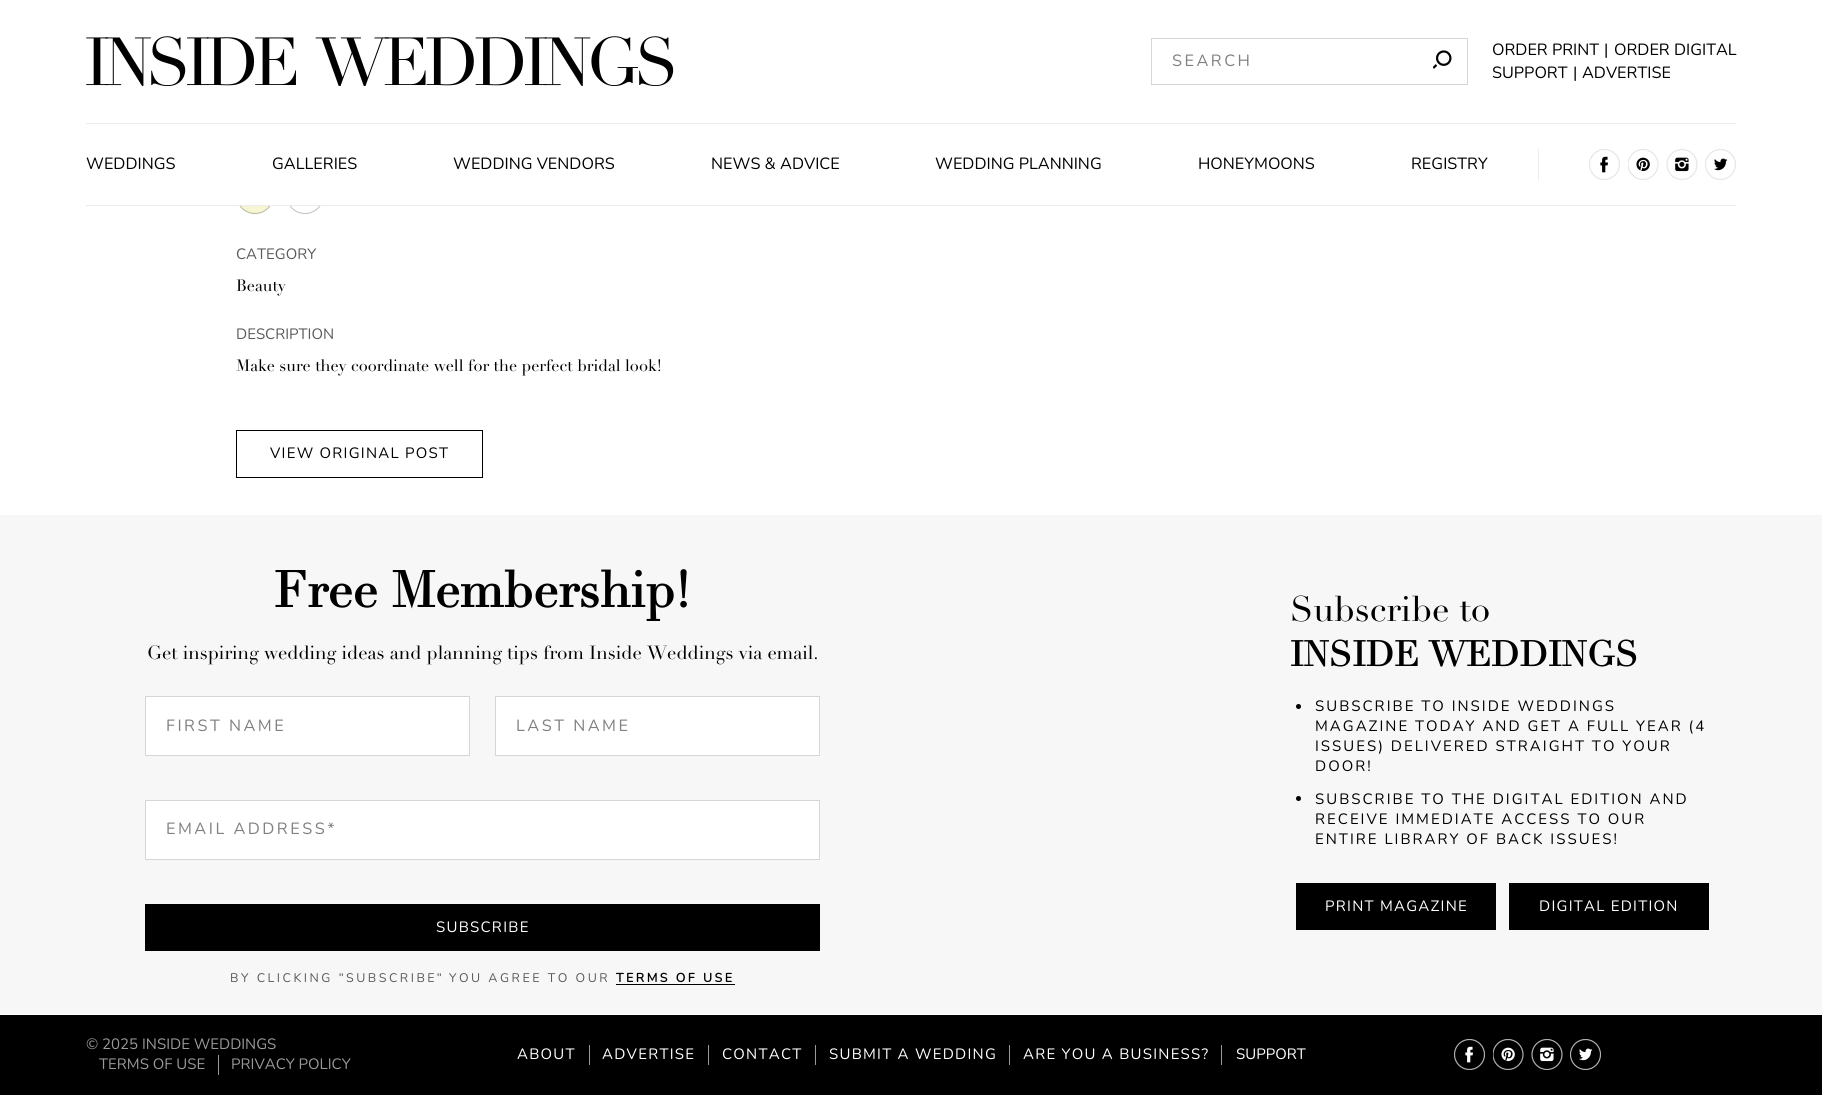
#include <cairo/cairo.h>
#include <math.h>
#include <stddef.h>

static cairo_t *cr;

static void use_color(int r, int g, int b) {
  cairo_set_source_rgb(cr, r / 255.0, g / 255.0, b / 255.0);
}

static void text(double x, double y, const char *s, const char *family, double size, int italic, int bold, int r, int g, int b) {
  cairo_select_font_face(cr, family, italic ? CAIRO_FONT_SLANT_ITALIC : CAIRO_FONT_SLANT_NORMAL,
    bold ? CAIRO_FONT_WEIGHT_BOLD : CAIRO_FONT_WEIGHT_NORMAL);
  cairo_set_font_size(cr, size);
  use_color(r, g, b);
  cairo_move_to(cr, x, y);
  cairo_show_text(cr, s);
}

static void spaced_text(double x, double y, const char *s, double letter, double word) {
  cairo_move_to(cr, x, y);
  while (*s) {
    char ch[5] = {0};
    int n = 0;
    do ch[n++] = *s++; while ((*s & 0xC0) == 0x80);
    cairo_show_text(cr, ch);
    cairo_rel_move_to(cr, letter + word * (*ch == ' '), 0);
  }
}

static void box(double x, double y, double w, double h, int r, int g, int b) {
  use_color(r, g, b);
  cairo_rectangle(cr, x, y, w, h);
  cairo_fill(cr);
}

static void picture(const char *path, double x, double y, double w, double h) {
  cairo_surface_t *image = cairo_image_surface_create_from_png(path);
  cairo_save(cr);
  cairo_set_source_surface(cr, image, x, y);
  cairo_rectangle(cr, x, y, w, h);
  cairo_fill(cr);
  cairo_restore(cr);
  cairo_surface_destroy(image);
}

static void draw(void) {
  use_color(255, 255, 255);
  cairo_paint(cr);
  use_color(246, 246, 212);
  cairo_arc(cr, 255, 195, 19, 0, 2 * M_PI);
  cairo_fill(cr);
  cairo_arc(cr, 255, 195, 18.5, 0, 2 * M_PI);
  cairo_set_source_rgba(cr, 0, 0, 0, 0.25);
  cairo_set_line_width(cr, 1);
  cairo_stroke(cr);
  cairo_arc(cr, 305, 195, 18.5, 0, 2 * M_PI);
  use_color(191, 191, 191);
  cairo_stroke(cr);
  box(236, 176, 88, 30, 255, 255, 255);
  picture("img_01.png", 86, 36, 588, 50);
  cairo_rectangle(cr, 1151.5, 38.5, 316, 46);
  use_color(214, 214, 212);
  cairo_stroke(cr);
  picture("img_02.png", 1433, 50, 19, 19);
  box(86, 123, 1650, 1, 236, 236, 236);
  box(86, 205, 1650, 1, 236, 236, 236);
  box(1538, 149, 1, 31, 236, 236, 236);
  picture("img_03.png", 1589, 149, 31, 31);
  picture("img_04.png", 1628, 149, 31, 31);
  picture("img_05.png", 1666, 149, 32, 31);
  picture("img_06.png", 1705, 149, 31, 31);
  cairo_rectangle(cr, 236.5, 430.5, 246, 47);
  use_color(0, 0, 0);
  cairo_stroke(cr);
  box(0, 515, 1822, 499, 247, 247, 247);
  use_color(255, 255, 255);
  cairo_rectangle(cr, 145.5, 696.5, 324, 59);
  cairo_fill_preserve(cr);
  use_color(214, 214, 212);
  cairo_stroke(cr);
  use_color(255, 255, 255);
  cairo_rectangle(cr, 495.5, 696.5, 324, 59);
  cairo_fill_preserve(cr);
  use_color(214, 214, 212);
  cairo_stroke(cr);
  use_color(255, 255, 255);
  cairo_rectangle(cr, 145.5, 800.5, 674, 59);
  cairo_fill_preserve(cr);
  use_color(214, 214, 212);
  cairo_stroke(cr);
  box(145, 904, 675, 47, 0, 0, 0);
  box(616, 984, 119, 1, 0, 0, 0);
  cairo_arc(cr, 1298.5, 706.5, 2.5, 0, 2 * M_PI);
  cairo_fill(cr);
  cairo_arc(cr, 1298.5, 798.5, 2.5, 0, 2 * M_PI);
  cairo_fill(cr);
  box(1296, 883, 200, 47, 0, 0, 0);
  box(1509, 883, 200, 47, 0, 0, 0);
  box(0, 1015, 1822, 80, 0, 0, 0);
  box(218, 1055, 1, 20, 154, 154, 154);
  box(589, 1045, 1, 20, 154, 154, 154);
  box(708, 1045, 1, 20, 154, 154, 154);
  box(815, 1045, 1, 20, 154, 154, 154);
  box(1009, 1045, 1, 20, 154, 154, 154);
  box(1221, 1045, 1, 20, 154, 154, 154);
  picture("img_07.png", 1454, 1039, 31, 31);
  picture("img_08.png", 1493, 1039, 31, 31);
  picture("img_09.png", 1531, 1039, 32, 31);
  picture("img_10.png", 1570, 1039, 31, 31);
  cairo_select_font_face(cr, "Nunito", CAIRO_FONT_SLANT_NORMAL, CAIRO_FONT_WEIGHT_NORMAL);
  cairo_set_font_size(cr, 16.25);
  use_color(128, 128, 128);
  spaced_text(1172, 66, "SEARCH", 2.5, 0);
  text(1492, 55, "ORDER PRINT", "Nunito", 16.25, 0, 0, 0, 0, 0);
  text(1604, 55, "|", "Nunito", 16.25, 0, 0, 0, 0, 0);
  text(1614, 55, "ORDER DIGITAL", "Nunito", 16.25, 0, 0, 0, 0, 0);
  text(1492, 78, "SUPPORT", "Nunito", 16.25, 0, 0, 0, 0, 0);
  text(1573, 78, "|", "Nunito", 16.25, 0, 0, 0, 0, 0);
  text(1582, 78, "ADVERTISE", "Nunito", 16.25, 0, 0, 0, 0, 0);
  text(86, 169, "WEDDINGS", "Nunito", 16.25, 0, 0, 0, 0, 0);
  text(272, 169, "GALLERIES", "Nunito", 16.25, 0, 0, 0, 0, 0);
  text(453, 169, "WEDDING VENDORS", "Nunito", 16.25, 0, 0, 0, 0, 0);
  text(711, 169, "NEWS & ADVICE", "Nunito", 16.25, 0, 0, 0, 0, 0);
  text(935, 169, "WEDDING PLANNING", "Nunito", 16.25, 0, 0, 0, 0, 0);
  text(1198, 169, "HONEYMOONS", "Nunito", 16.25, 0, 0, 0, 0, 0);
  text(1411, 169, "REGISTRY", "Nunito", 16.25, 0, 0, 0, 0, 0);
  text(236, 259, "CATEGORY", "Nunito", 15, 0, 0, 89, 89, 89);
  text(236, 291, "Beauty", "Didot", 16.25, 0, 0, 0, 0, 0);
  text(236, 339, "DESCRIPTION", "Nunito", 15, 0, 0, 89, 89, 89);
  text(236, 371, "Make sure they coordinate well for the perfect bridal look!", "Didot", 16.25, 0, 0, 0, 0, 0);
  cairo_select_font_face(cr, "Nunito", CAIRO_FONT_SLANT_NORMAL, CAIRO_FONT_WEIGHT_NORMAL);
  cairo_set_font_size(cr, 15);
  spaced_text(270, 458, "VIEW ORIGINAL POST", 1.25, 0);
  text(274, 607, "Free Membership!", "Didot", 50, 0, 1, 0, 0, 0);
  text(147, 659, "Get inspiring wedding ideas and planning tips from Inside Weddings via email.", "Didot", 18.75, 0, 0, 0, 0, 0);
  cairo_select_font_face(cr, "Nunito", CAIRO_FONT_SLANT_NORMAL, CAIRO_FONT_WEIGHT_NORMAL);
  cairo_set_font_size(cr, 16.25);
  use_color(128, 128, 128);
  spaced_text(166, 731, "FIRST NAME", 2.5, 0);
  spaced_text(516, 731, "LAST NAME", 2.5, 0);
  spaced_text(166, 834, "EMAIL ADDRESS*", 2.5, 0);
  cairo_set_font_size(cr, 15);
  use_color(255, 255, 255);
  spaced_text(436, 932, "SUBSCRIBE", 1.25, 0);
  cairo_set_font_size(cr, 12.5);
  use_color(89, 89, 89);
  spaced_text(230, 982, "BY CLICKING", 2.5, 0);
  cairo_select_font_face(cr, "Liberation Sans", CAIRO_FONT_SLANT_NORMAL, CAIRO_FONT_WEIGHT_NORMAL);
  spaced_text(339, 982, "\"", 2.5, 0);
  cairo_select_font_face(cr, "Nunito", CAIRO_FONT_SLANT_NORMAL, CAIRO_FONT_WEIGHT_NORMAL);
  spaced_text(346, 982, "SUBSCRIBE", 2.5, 0);
  cairo_select_font_face(cr, "Liberation Sans", CAIRO_FONT_SLANT_NORMAL, CAIRO_FONT_WEIGHT_NORMAL);
  spaced_text(437, 982, "\"", 2.5, 0);
  cairo_select_font_face(cr, "Nunito", CAIRO_FONT_SLANT_NORMAL, CAIRO_FONT_WEIGHT_NORMAL);
  spaced_text(449, 982, "YOU AGREE TO OUR", 2.5, 0);
  cairo_select_font_face(cr, "Nunito", CAIRO_FONT_SLANT_NORMAL, CAIRO_FONT_WEIGHT_BOLD);
  use_color(0, 0, 0);
  spaced_text(616, 982, "TERMS OF USE", 2.5, 0);
  text(1290, 621, "Subscribe to", "Didot", 35, 0, 0, 0, 0, 0);
  text(1290, 666, "INSIDE WEDDINGS", "Didot", 35, 0, 1, 0, 0, 0);
  cairo_select_font_face(cr, "Nunito", CAIRO_FONT_SLANT_NORMAL, CAIRO_FONT_WEIGHT_NORMAL);
  cairo_set_font_size(cr, 15);
  spaced_text(1315, 711, "SUBSCRIBE TO INSIDE WEDDINGS", 2, 0);
  spaced_text(1315, 731, "MAGAZINE TODAY AND GET A FULL YEAR (4", 2, 0);
  spaced_text(1315, 751, "ISSUES) DELIVERED STRAIGHT TO YOUR", 2, 0);
  spaced_text(1315, 771, "DOOR!", 2, 0);
  spaced_text(1315, 804, "SUBSCRIBE TO THE DIGITAL EDITION AND", 2, 0);
  spaced_text(1315, 824, "RECEIVE IMMEDIATE ACCESS TO OUR", 2, 0);
  spaced_text(1315, 844, "ENTIRE LIBRARY OF BACK ISSUES!", 2, 0);
  use_color(255, 255, 255);
  spaced_text(1325, 911, "PRINT MAGAZINE", 1.25, 0);
  spaced_text(1539, 911, "DIGITAL EDITION", 1.25, 0);
  text(86, 1049, "© 2025 INSIDE WEDDINGS", "Nunito", 15, 0, 0, 154, 154, 154);
  text(99, 1069, "TERMS OF USE", "Nunito", 15, 0, 0, 154, 154, 154);
  text(231, 1069, "PRIVACY POLICY", "Nunito", 15, 0, 0, 154, 154, 154);
  use_color(255, 255, 255);
  spaced_text(517, 1059, "ABOUT", 1.25, 0);
  spaced_text(602, 1059, "ADVERTISE", 1.25, 0);
  spaced_text(722, 1059, "CONTACT", 1.25, 0);
  spaced_text(829, 1059, "SUBMIT A WEDDING", 1.25, 0);
  spaced_text(1023, 1059, "ARE YOU A BUSINESS?", 1.25, 0);
  text(1236, 1059, "SUPPORT", "Nunito", 15, 0, 0, 255, 255, 255);
}

int main(void) {
  cairo_surface_t *surface = cairo_image_surface_create(CAIRO_FORMAT_RGB24, 1822, 1095);
  cr = cairo_create(surface);
  cairo_font_options_t *options = cairo_font_options_create();
  cairo_font_options_set_hint_metrics(options, CAIRO_HINT_METRICS_OFF);
  cairo_font_options_set_hint_style(options, CAIRO_HINT_STYLE_NONE);
  cairo_set_font_options(cr, options);
  cairo_set_miter_limit(cr, 4);
  draw();
  cairo_surface_write_to_png(surface, "out.png");
  cairo_font_options_destroy(options);
  cairo_destroy(cr);
  cairo_surface_destroy(surface);
  return 0;
}
